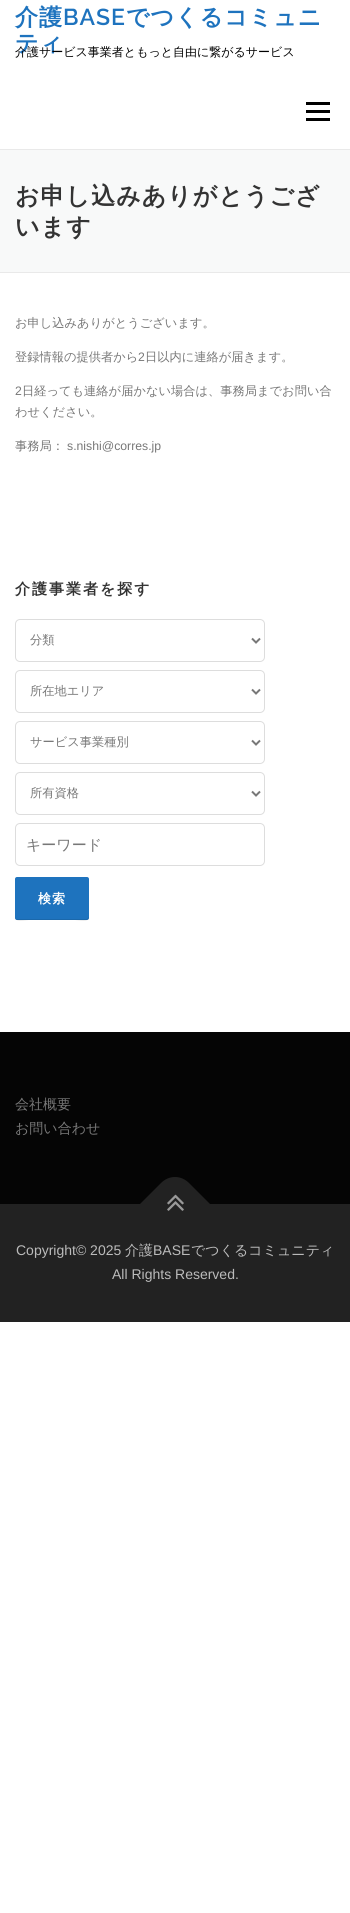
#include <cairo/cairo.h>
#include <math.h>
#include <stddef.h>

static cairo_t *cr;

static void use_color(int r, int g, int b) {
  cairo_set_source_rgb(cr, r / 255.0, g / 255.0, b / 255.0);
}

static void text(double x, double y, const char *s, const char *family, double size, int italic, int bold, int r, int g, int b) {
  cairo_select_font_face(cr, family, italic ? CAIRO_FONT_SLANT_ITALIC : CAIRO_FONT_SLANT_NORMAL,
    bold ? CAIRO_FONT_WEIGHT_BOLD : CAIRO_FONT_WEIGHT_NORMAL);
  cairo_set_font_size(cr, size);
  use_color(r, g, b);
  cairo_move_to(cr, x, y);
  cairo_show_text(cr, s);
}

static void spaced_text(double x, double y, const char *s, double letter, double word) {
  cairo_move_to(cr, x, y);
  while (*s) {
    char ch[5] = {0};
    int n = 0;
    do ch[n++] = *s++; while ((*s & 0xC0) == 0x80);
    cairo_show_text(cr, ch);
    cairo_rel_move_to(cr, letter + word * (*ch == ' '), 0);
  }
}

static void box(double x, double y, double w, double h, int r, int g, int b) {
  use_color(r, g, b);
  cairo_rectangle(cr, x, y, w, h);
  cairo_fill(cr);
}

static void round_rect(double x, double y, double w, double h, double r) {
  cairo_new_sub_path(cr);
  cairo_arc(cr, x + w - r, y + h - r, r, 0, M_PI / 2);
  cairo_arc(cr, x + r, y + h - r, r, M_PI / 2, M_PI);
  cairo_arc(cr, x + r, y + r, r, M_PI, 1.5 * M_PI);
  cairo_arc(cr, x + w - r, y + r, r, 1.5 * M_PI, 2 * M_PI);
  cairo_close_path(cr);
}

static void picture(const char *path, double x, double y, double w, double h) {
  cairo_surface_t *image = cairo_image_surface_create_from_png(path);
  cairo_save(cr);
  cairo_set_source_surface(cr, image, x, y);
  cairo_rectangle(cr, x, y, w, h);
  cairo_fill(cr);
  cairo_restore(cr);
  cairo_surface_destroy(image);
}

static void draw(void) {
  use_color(255, 255, 255);
  cairo_paint(cr);
  box(306, 110, 24, 3, 0, 0, 0);
  box(306, 102, 24, 3, 0, 0, 0);
  box(306, 118, 24, 3, 0, 0, 0);
  box(0, 150, 350, 122, 248, 249, 249);
  box(0, 149, 350, 1, 233, 233, 233);
  box(0, 272, 350, 1, 233, 233, 233);
  round_rect(15.5, 619.5, 249, 42, 4.5);
  use_color(221, 221, 221);
  cairo_set_line_width(cr, 1);
  cairo_stroke(cr);
  cairo_new_path(cr);
  cairo_move_to(cr, 252, 638.5);
  cairo_line_to(cr, 256, 642.5);
  cairo_line_to(cr, 260, 638.5);
  use_color(119, 119, 119);
  cairo_set_line_width(cr, 2);
  cairo_stroke(cr);
  round_rect(15.5, 670.5, 249, 42, 4.5);
  use_color(221, 221, 221);
  cairo_set_line_width(cr, 1);
  cairo_stroke(cr);
  cairo_new_path(cr);
  cairo_move_to(cr, 252, 689.5);
  cairo_line_to(cr, 256, 693.5);
  cairo_line_to(cr, 260, 689.5);
  use_color(119, 119, 119);
  cairo_set_line_width(cr, 2);
  cairo_stroke(cr);
  round_rect(15.5, 721.5, 249, 42, 4.5);
  use_color(221, 221, 221);
  cairo_set_line_width(cr, 1);
  cairo_stroke(cr);
  cairo_new_path(cr);
  cairo_move_to(cr, 252, 740.5);
  cairo_line_to(cr, 256, 744.5);
  cairo_line_to(cr, 260, 740.5);
  use_color(119, 119, 119);
  cairo_set_line_width(cr, 2);
  cairo_stroke(cr);
  round_rect(15.5, 772.5, 249, 42, 4.5);
  use_color(221, 221, 221);
  cairo_set_line_width(cr, 1);
  cairo_stroke(cr);
  cairo_new_path(cr);
  cairo_move_to(cr, 252, 791.5);
  cairo_line_to(cr, 256, 795.5);
  cairo_line_to(cr, 260, 791.5);
  use_color(119, 119, 119);
  cairo_set_line_width(cr, 2);
  cairo_stroke(cr);
  round_rect(15.5, 823.5, 249, 42, 4.5);
  use_color(221, 221, 221);
  cairo_set_line_width(cr, 1);
  cairo_stroke(cr);
  use_color(30, 115, 190);
  round_rect(15, 877, 74, 43, 2);
  cairo_fill(cr);
  cairo_set_source_rgba(cr, 0, 0, 0, 0.1);
  cairo_new_path(cr);
  cairo_move_to(cr, 15, 917);
  cairo_curve_to(cr, 15, 923, 25, 920, 29, 920);
  cairo_line_to(cr, 75, 920);
  cairo_curve_to(cr, 79, 920, 89, 923, 89, 917);
  cairo_line_to(cr, 88, 918);
  cairo_line_to(cr, 87, 919);
  cairo_line_to(cr, 17, 919);
  cairo_curve_to(cr, 16, 919, 15, 918, 15, 917);
  cairo_close_path(cr);
  cairo_fill(cr);
  box(0, 1032, 350, 172, 5, 5, 5);
  box(0, 1204, 350, 118, 34, 34, 34);
  cairo_new_path(cr);
  cairo_move_to(cr, 140, 1204);
  cairo_line_to(cr, 161, 1183);
  cairo_curve_to(cr, 169, 1175, 181, 1175, 189, 1183);
  cairo_line_to(cr, 210, 1204);
  cairo_line_to(cr, 175, 1240);
  cairo_close_path(cr);
  cairo_fill(cr);
  picture("img_01.png", 167, 1194, 17, 17);
  cairo_select_font_face(cr, "WenQuanYi Zen Hei", CAIRO_FONT_SLANT_NORMAL, CAIRO_FONT_WEIGHT_BOLD);
  cairo_set_font_size(cr, 23);
  use_color(30, 115, 190);
  spaced_text(15, 25, "介護", 1, 0);
  cairo_select_font_face(cr, "Raleway SemiBold", CAIRO_FONT_SLANT_NORMAL, CAIRO_FONT_WEIGHT_NORMAL);
  spaced_text(63, 25, "BASE", 1, 0);
  cairo_select_font_face(cr, "WenQuanYi Zen Hei", CAIRO_FONT_SLANT_NORMAL, CAIRO_FONT_WEIGHT_BOLD);
  spaced_text(126, 25, "でつくるコミュニ", 1, 0);
  spaced_text(15, 51, "ティ", 1, 0);
  text(15, 56, "介護サービス事業者ともっと自由に繋がるサービス", "WenQuanYi Zen Hei Medium", 12, 0, 0, 0, 0, 0);
  cairo_select_font_face(cr, "WenQuanYi Zen Hei", CAIRO_FONT_SLANT_NORMAL, CAIRO_FONT_WEIGHT_BOLD);
  cairo_set_font_size(cr, 24);
  use_color(51, 51, 51);
  spaced_text(15, 204, "お申し込みありがとうござ", 1, 0);
  spaced_text(15, 235, "います", 1, 0);
  text(15, 327, "お申し込みありがとうございます。", "WenQuanYi Zen Hei Medium", 12.25, 0, 0, 119, 119, 119);
  text(15, 361, "登録情報の提供者から", "WenQuanYi Zen Hei Medium", 12.25, 0, 0, 119, 119, 119);
  text(138, 361, "2", "Liberation Sans", 12.25, 0, 0, 119, 119, 119);
  text(145, 361, "日以内に連絡が届きます。", "WenQuanYi Zen Hei Medium", 12.25, 0, 0, 119, 119, 119);
  text(15, 395, "2", "Liberation Sans", 12.25, 0, 0, 119, 119, 119);
  text(22, 395, "日経っても連絡が届かない場合は、事務局までお問い合", "WenQuanYi Zen Hei Medium", 12.25, 0, 0, 119, 119, 119);
  text(15, 416, "わせください。", "WenQuanYi Zen Hei Medium", 12.25, 0, 0, 119, 119, 119);
  text(15, 450, "事務局：", "WenQuanYi Zen Hei Medium", 12.25, 0, 0, 119, 119, 119);
  text(67, 450, "s.nishi@corres.jp", "Liberation Sans", 12.25, 0, 0, 119, 119, 119);
  cairo_select_font_face(cr, "WenQuanYi Zen Hei", CAIRO_FONT_SLANT_NORMAL, CAIRO_FONT_WEIGHT_BOLD);
  cairo_set_font_size(cr, 15);
  use_color(51, 51, 51);
  spaced_text(15, 594, "介護事業者を探す", 2, 0);
  text(30, 644, "分類", "WenQuanYi Zen Hei Medium", 12.25, 0, 0, 119, 119, 119);
  text(30, 695, "所在地エリア", "WenQuanYi Zen Hei Medium", 12.25, 0, 0, 119, 119, 119);
  text(30, 746, "サービス事業種別", "WenQuanYi Zen Hei Medium", 12.25, 0, 0, 119, 119, 119);
  text(30, 797, "所有資格", "WenQuanYi Zen Hei Medium", 12.25, 0, 0, 119, 119, 119);
  text(26, 850, "キーワード", "WenQuanYi Zen Hei Medium", 15, 0, 0, 119, 119, 119);
  cairo_select_font_face(cr, "WenQuanYi Zen Hei", CAIRO_FONT_SLANT_NORMAL, CAIRO_FONT_WEIGHT_BOLD);
  cairo_set_font_size(cr, 13);
  use_color(255, 255, 255);
  spaced_text(38, 903, "検索", 1, 0);
  text(15, 1109, "会社概要", "WenQuanYi Zen Hei Medium", 14, 0, 0, 119, 119, 119);
  text(15, 1133, "お問い合わせ", "WenQuanYi Zen Hei Medium", 14, 0, 0, 119, 119, 119);
  text(16, 1255, "Copyright© 2025", "Liberation Sans", 14, 0, 0, 187, 187, 187);
  text(125, 1255, "介護", "WenQuanYi Zen Hei Medium", 14, 0, 0, 187, 187, 187);
  text(153, 1255, "BASE", "Liberation Sans", 14, 0, 0, 187, 187, 187);
  text(191, 1255, "でつくるコミュニティ", "WenQuanYi Zen Hei Medium", 14, 0, 0, 187, 187, 187);
  text(112, 1279, "All Rights Reserved.", "Liberation Sans", 14, 0, 0, 187, 187, 187);
}

int main(void) {
  cairo_surface_t *surface = cairo_image_surface_create(CAIRO_FORMAT_RGB24, 350, 1913);
  cr = cairo_create(surface);
  cairo_font_options_t *options = cairo_font_options_create();
  cairo_font_options_set_hint_metrics(options, CAIRO_HINT_METRICS_OFF);
  cairo_font_options_set_hint_style(options, CAIRO_HINT_STYLE_NONE);
  cairo_set_font_options(cr, options);
  cairo_set_miter_limit(cr, 4);
  draw();
  cairo_surface_write_to_png(surface, "out.png");
  cairo_font_options_destroy(options);
  cairo_destroy(cr);
  cairo_surface_destroy(surface);
  return 0;
}
